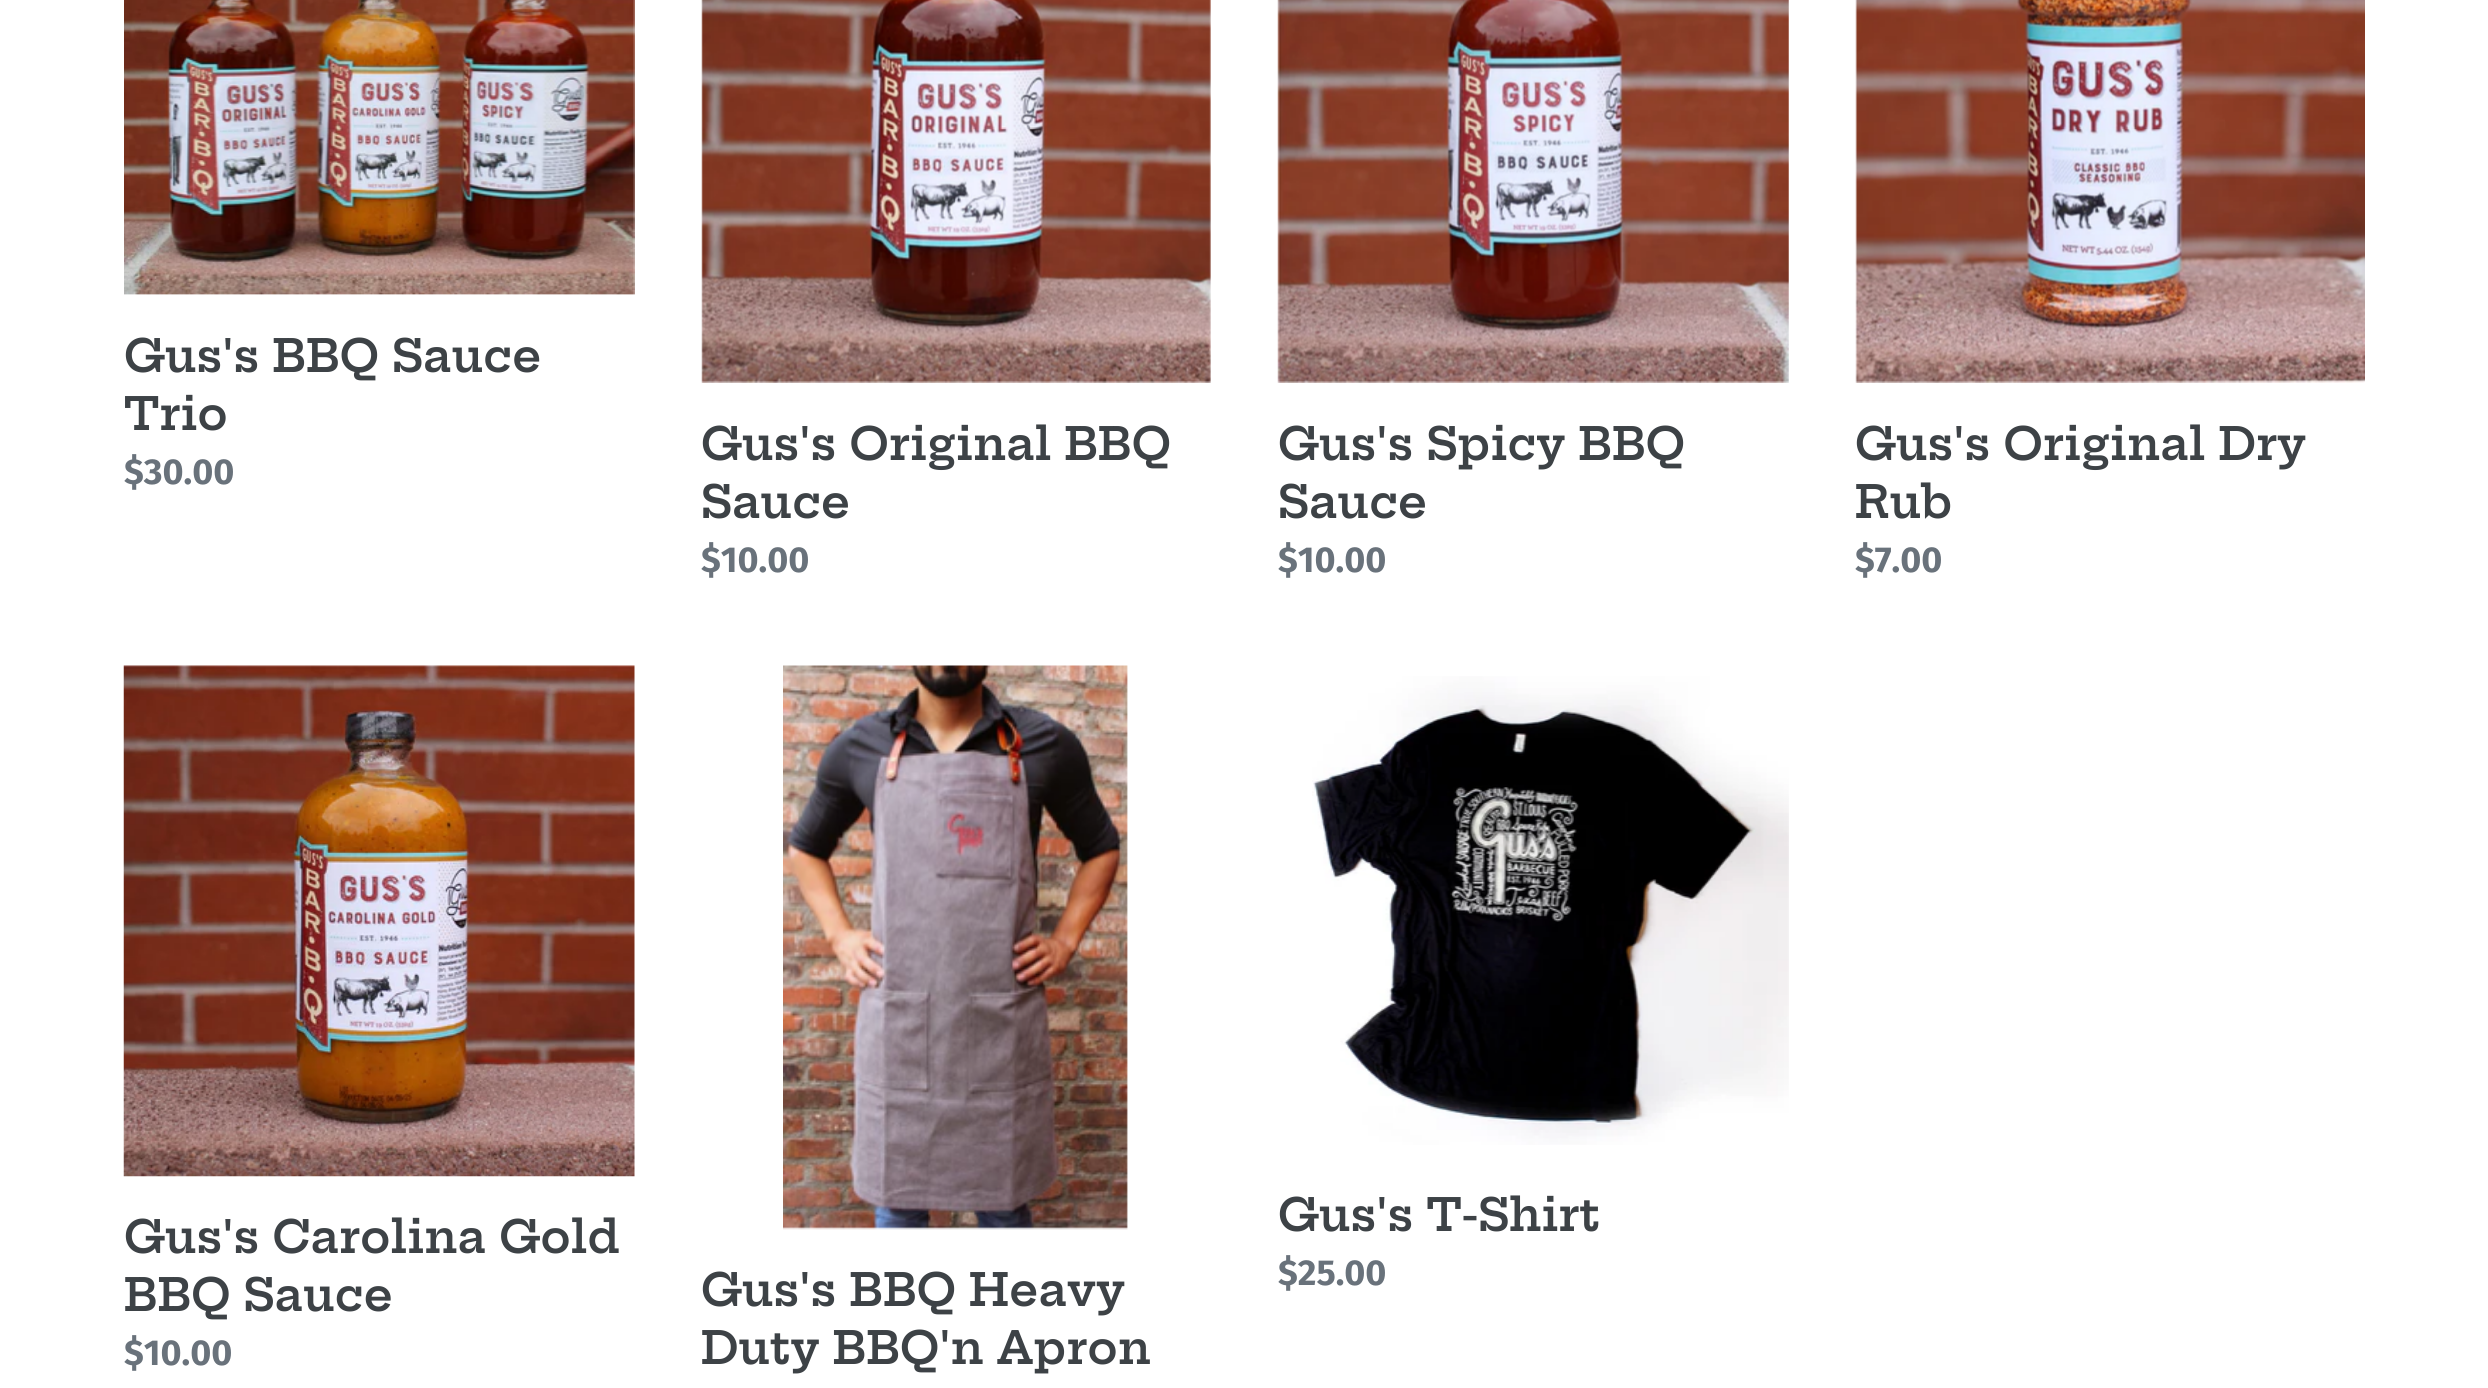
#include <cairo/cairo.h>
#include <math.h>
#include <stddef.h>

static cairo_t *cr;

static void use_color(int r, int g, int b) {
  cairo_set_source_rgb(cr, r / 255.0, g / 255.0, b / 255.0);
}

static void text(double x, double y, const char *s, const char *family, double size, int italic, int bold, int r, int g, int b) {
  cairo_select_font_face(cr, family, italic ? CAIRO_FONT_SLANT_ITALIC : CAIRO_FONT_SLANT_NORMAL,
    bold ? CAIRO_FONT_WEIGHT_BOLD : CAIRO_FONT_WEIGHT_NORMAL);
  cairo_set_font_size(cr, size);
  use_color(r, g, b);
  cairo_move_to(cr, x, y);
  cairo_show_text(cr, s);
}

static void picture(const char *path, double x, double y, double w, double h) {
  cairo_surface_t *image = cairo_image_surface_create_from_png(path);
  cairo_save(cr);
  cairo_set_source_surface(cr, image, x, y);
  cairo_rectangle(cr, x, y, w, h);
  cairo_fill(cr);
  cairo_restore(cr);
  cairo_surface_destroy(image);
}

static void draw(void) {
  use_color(255, 255, 255);
  cairo_paint(cr);
  picture("img_01.png", 124, 0, 511, 295);
  picture("img_02.png", 701, 0, 510, 383);
  picture("img_03.png", 1277, 0, 512, 383);
  picture("img_04.png", 1855, 0, 510, 383);
  picture("img_05.png", 123, 665, 512, 512);
  picture("img_06.png", 783, 665, 345, 565);
  picture("img_07.png", 1312, 676, 477, 469);
  text(124, 372, "Gus's BBQ Sauce", "Hepta Slab SemiBold", 45, 0, 0, 61, 66, 70);
  text(124, 430, "Trio", "Hepta Slab SemiBold", 45, 0, 0, 61, 66, 70);
  text(124, 484, "$30.00", "Fira Sans", 36, 0, 1, 105, 114, 123);
  text(701, 460, "Gus's Original BBQ", "Hepta Slab SemiBold", 45, 0, 0, 61, 66, 70);
  text(701, 518, "Sauce", "Hepta Slab SemiBold", 45, 0, 0, 61, 66, 70);
  text(701, 572, "$10.00", "Fira Sans", 36, 0, 1, 105, 114, 123);
  text(1278, 460, "Gus's Spicy BBQ", "Hepta Slab SemiBold", 45, 0, 0, 61, 66, 70);
  text(1278, 518, "Sauce", "Hepta Slab SemiBold", 45, 0, 0, 61, 66, 70);
  text(1278, 572, "$10.00", "Fira Sans", 36, 0, 1, 105, 114, 123);
  text(1855, 460, "Gus's Original Dry", "Hepta Slab SemiBold", 45, 0, 0, 61, 66, 70);
  text(1855, 518, "Rub", "Hepta Slab SemiBold", 45, 0, 0, 61, 66, 70);
  text(1855, 572, "$7.00", "Fira Sans", 36, 0, 1, 105, 114, 123);
  text(124, 1253, "Gus's Carolina Gold", "Hepta Slab SemiBold", 45, 0, 0, 61, 66, 70);
  text(124, 1311, "BBQ Sauce", "Hepta Slab SemiBold", 45, 0, 0, 61, 66, 70);
  text(124, 1365, "$10.00", "Fira Sans", 36, 0, 1, 105, 114, 123);
  text(701, 1306, "Gus's BBQ Heavy", "Hepta Slab SemiBold", 45, 0, 0, 61, 66, 70);
  text(701, 1364, "Duty BBQ'n Apron", "Hepta Slab SemiBold", 45, 0, 0, 61, 66, 70);
  text(1278, 1231, "Gus's T-Shirt", "Hepta Slab SemiBold", 45, 0, 0, 61, 66, 70);
  text(1278, 1285, "$25.00", "Fira Sans", 36, 0, 1, 105, 114, 123);
}

int main(void) {
  cairo_surface_t *surface = cairo_image_surface_create(CAIRO_FORMAT_RGB24, 2488, 1388);
  cr = cairo_create(surface);
  cairo_font_options_t *options = cairo_font_options_create();
  cairo_font_options_set_hint_metrics(options, CAIRO_HINT_METRICS_OFF);
  cairo_font_options_set_hint_style(options, CAIRO_HINT_STYLE_NONE);
  cairo_set_font_options(cr, options);
  cairo_set_miter_limit(cr, 4);
  draw();
  cairo_surface_write_to_png(surface, "out.png");
  cairo_font_options_destroy(options);
  cairo_destroy(cr);
  cairo_surface_destroy(surface);
  return 0;
}
